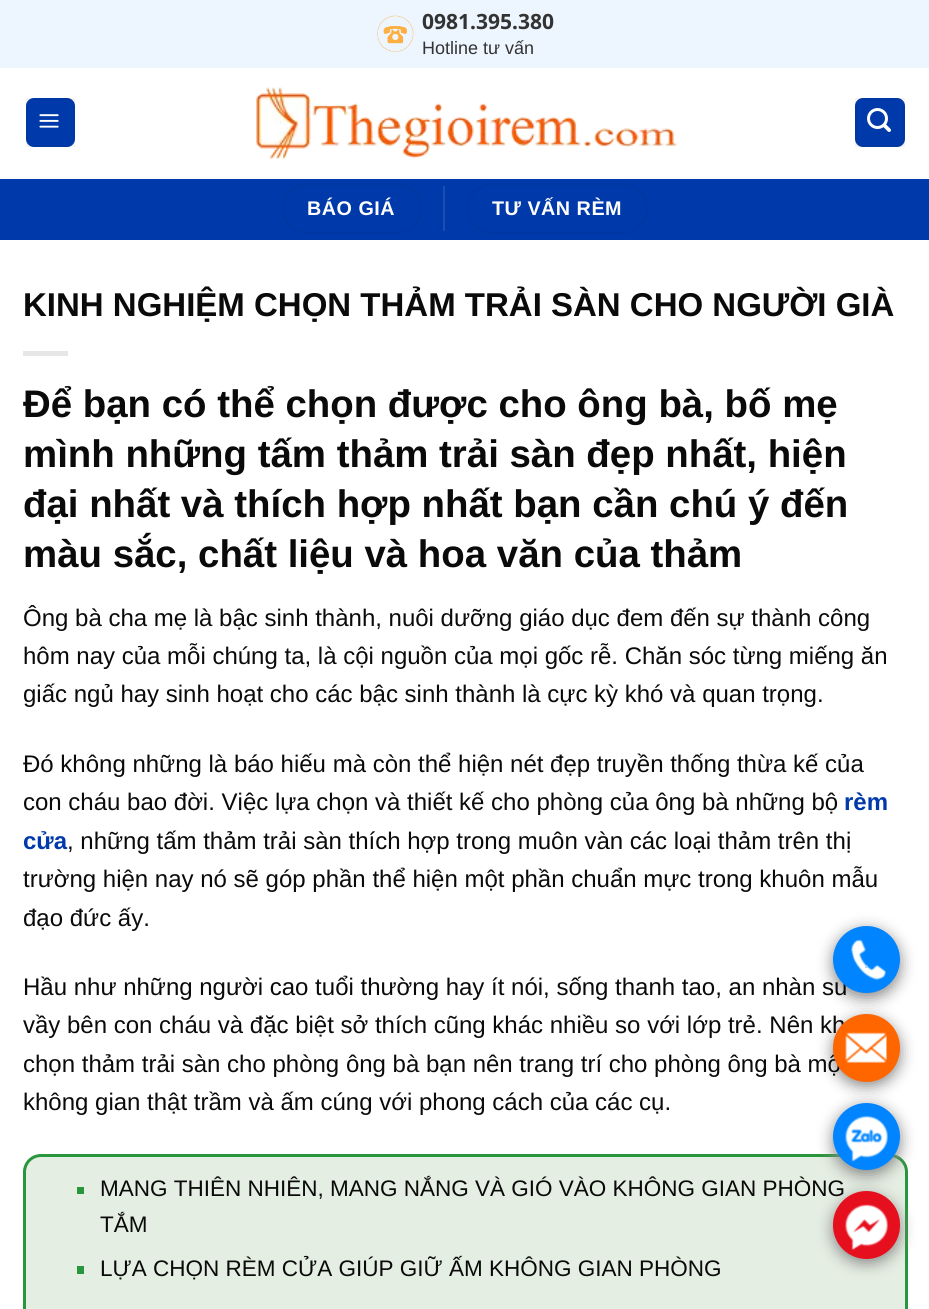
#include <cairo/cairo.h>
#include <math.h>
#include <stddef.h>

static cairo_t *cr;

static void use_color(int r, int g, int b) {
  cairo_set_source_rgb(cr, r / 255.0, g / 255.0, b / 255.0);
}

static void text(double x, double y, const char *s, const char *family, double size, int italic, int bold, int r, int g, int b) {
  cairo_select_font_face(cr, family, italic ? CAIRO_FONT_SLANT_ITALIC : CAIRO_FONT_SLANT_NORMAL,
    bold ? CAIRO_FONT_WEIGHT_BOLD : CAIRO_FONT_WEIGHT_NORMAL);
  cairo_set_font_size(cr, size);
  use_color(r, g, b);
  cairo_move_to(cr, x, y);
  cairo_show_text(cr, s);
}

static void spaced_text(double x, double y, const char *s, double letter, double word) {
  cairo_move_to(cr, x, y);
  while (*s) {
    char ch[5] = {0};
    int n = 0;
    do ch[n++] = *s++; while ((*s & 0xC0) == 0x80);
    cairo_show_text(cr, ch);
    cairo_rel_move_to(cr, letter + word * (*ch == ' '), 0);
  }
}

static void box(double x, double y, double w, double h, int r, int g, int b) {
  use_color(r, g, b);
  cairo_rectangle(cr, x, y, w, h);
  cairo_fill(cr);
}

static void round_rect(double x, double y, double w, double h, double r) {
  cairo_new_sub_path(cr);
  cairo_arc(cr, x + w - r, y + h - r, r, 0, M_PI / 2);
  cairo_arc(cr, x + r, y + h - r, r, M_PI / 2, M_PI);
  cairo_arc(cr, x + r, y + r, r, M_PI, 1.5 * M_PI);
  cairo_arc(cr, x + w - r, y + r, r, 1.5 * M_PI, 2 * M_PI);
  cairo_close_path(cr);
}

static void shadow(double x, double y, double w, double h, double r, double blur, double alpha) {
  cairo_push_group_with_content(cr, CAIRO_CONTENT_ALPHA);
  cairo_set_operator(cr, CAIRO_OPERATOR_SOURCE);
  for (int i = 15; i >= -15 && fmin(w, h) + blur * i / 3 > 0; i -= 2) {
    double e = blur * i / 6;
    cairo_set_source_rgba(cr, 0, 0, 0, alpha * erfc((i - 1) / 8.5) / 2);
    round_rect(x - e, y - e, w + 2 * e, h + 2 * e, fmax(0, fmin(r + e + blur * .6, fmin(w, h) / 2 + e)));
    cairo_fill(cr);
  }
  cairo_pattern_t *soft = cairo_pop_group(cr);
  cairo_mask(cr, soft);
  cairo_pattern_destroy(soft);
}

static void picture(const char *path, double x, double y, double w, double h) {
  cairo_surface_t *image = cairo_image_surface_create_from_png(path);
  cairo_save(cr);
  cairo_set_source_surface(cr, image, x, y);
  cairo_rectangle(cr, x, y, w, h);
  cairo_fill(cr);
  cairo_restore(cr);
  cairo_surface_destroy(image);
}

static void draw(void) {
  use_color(255, 255, 255);
  cairo_paint(cr);
  box(0, 0, 929, 68, 237, 245, 255);
  picture("img_01.png", 377, 15, 37, 37);
  use_color(0, 58, 170);
  round_rect(26, 98, 49, 49, 8);
  cairo_fill(cr);
  cairo_rectangle(cr, 27, 99, 47, 47);
  cairo_set_source_rgba(cr, 0, 0, 0, 0.05);
  cairo_stroke(cr);
  picture("img_02.png", 39, 114, 20, 14);
  picture("img_03.png", 256, 87, 421, 73);
  use_color(0, 58, 170);
  round_rect(855, 98, 50, 49, 8);
  cairo_fill(cr);
  cairo_rectangle(cr, 856, 99, 48, 47);
  cairo_set_source_rgba(cr, 0, 0, 0, 0.05);
  cairo_stroke(cr);
  picture("img_04.png", 867, 108, 24, 24);
  box(0, 179, 929, 61, 0, 58, 170);
  round_rect(283, 184, 138, 49, 24.5);
  use_color(0, 55, 162);
  cairo_stroke(cr);
  box(443, 186, 2, 45, 26, 78, 179);
  round_rect(468, 184, 179, 49, 24.5);
  use_color(0, 55, 162);
  cairo_stroke(cr);
  box(23, 351, 45, 5, 230, 230, 230);
  use_color(229, 238, 226);
  round_rect(24.5, 1155.5, 882, 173, 16.5);
  cairo_fill_preserve(cr);
  use_color(39, 150, 60);
  cairo_set_line_width(cr, 3);
  cairo_stroke(cr);
  box(77, 1187, 7, 7, 39, 150, 60);
  box(77, 1266, 7, 8, 39, 150, 60);
  use_color(136, 136, 136);
  shadow(833, 930, 67, 68, 33.5, 7.5, 1);
  shadow(833, 1019, 67, 67, 33.5, 7.5, 1);
  shadow(833, 1107, 67, 68, 33.5, 7.5, 1);
  use_color(0, 132, 255);
  cairo_arc(cr, 866.5, 1136.5, 33.5, 0, 2 * M_PI);
  cairo_fill(cr);
  picture("img_07.png", 845, 1115, 44, 47);
  use_color(136, 136, 136);
  shadow(833, 1196, 67, 67, 33.5, 7.5, 1);
  text(422, 29, "0981.395.380", "Noto Sans", 21, 0, 1, 51, 51, 51);
  text(422, 54, "Hotline tư vấn", "Liberation Sans", 18, 0, 0, 51, 51, 51);
  cairo_select_font_face(cr, "Liberation Sans", CAIRO_FONT_SLANT_NORMAL, CAIRO_FONT_WEIGHT_BOLD);
  cairo_set_font_size(cr, 19.75);
  use_color(255, 255, 255);
  spaced_text(307, 215, "BÁO GIÁ", 0.5, 0);
  spaced_text(492, 215, "TƯ VẤN RÈM", 0.5, 0);
  text(23, 316, "KINH NGHIỆM CHỌN THẢM TRẢI SÀN CHO NGƯỜI GIÀ", "Liberation Sans", 33, 0, 1, 10, 10, 10);
  text(23, 417, "Để bạn có thể chọn được cho ông bà, bố mẹ", "Liberation Sans", 38.4, 0, 1, 10, 10, 10);
  text(23, 467, "mình những tấm thảm trải sàn đẹp nhất, hiện", "Liberation Sans", 38.4, 0, 1, 10, 10, 10);
  text(23, 517, "đại nhất và thích hợp nhất bạn cần chú ý đến", "Liberation Sans", 38.4, 0, 1, 10, 10, 10);
  text(23, 567, "màu sắc, chất liệu và hoa văn của thảm", "Liberation Sans", 38.4, 0, 1, 10, 10, 10);
  text(23, 626, "Ông bà cha mẹ là bậc sinh thành, nuôi dưỡng giáo dục đem đến sự thành công", "Liberation Sans", 24, 0, 0, 10, 10, 10);
  text(23, 664, "hôm nay của mỗi chúng ta, là cội nguồn của mọi gốc rễ. Chăn sóc từng miếng ăn", "Liberation Sans", 24, 0, 0, 10, 10, 10);
  text(23, 702, "giấc ngủ hay sinh hoạt cho các bậc sinh thành là cực kỳ khó và quan trọng.", "Liberation Sans", 24, 0, 0, 10, 10, 10);
  text(23, 772, "Đó không những là báo hiếu mà còn thể hiện nét đẹp truyền thống thừa kế của", "Liberation Sans", 24, 0, 0, 10, 10, 10);
  text(23, 810, "con cháu bao đời. Việc lựa chọn và thiết kế cho phòng của ông bà những bộ", "Liberation Sans", 24, 0, 0, 10, 10, 10);
  text(844, 810, "rèm", "Liberation Sans", 24, 0, 1, 0, 58, 170);
  text(23, 849, "cửa", "Liberation Sans", 24, 0, 1, 0, 58, 170);
  text(67, 849, ", những tấm thảm trải sàn thích hợp trong muôn vàn các loại thảm trên thị", "Liberation Sans", 24, 0, 0, 10, 10, 10);
  text(23, 887, "trường hiện nay nó sẽ góp phần thể hiện một phần chuẩn mực trong khuôn mẫu", "Liberation Sans", 24, 0, 0, 10, 10, 10);
  text(23, 926, "đạo đức ấy.", "Liberation Sans", 24, 0, 0, 10, 10, 10);
  text(23, 995, "Hầu như những người cao tuổi thường hay ít nói, sống thanh tao, an nhàn su", "Liberation Sans", 24, 0, 0, 10, 10, 10);
  text(23, 1033, "vầy bên con cháu và đặc biệt sở thích cũng khác nhiều so với lớp trẻ. Nên kh", "Liberation Sans", 24, 0, 0, 10, 10, 10);
  text(23, 1072, "chọn thảm trải sàn cho phòng ông bà bạn nên trang trí cho phòng ông bà mộ", "Liberation Sans", 24, 0, 0, 10, 10, 10);
  text(23, 1110, "không gian thật trầm và ấm cúng với phong cách của các cụ.", "Liberation Sans", 24, 0, 0, 10, 10, 10);
  text(100, 1196, "MANG THIÊN NHIÊN, MANG NẮNG VÀ GIÓ VÀO KHÔNG GIAN PHÒNG", "Liberation Sans", 22.5, 0, 0, 10, 10, 10);
  text(100, 1232, "TẮM", "Liberation Sans", 22.5, 0, 0, 10, 10, 10);
  text(100, 1276, "LỰA CHỌN RÈM CỬA GIÚP GIỮ ẤM KHÔNG GIAN PHÒNG", "Liberation Sans", 22.5, 0, 0, 10, 10, 10);
  use_color(0, 132, 255);
  cairo_new_path(cr);
  cairo_arc(cr, 866.5, 959.5, 33.5, 0, 2 * M_PI);
  cairo_fill(cr);
  picture("img_05.png", 851, 939, 35, 41);
  text(863, 968, ".", "Liberation Sans", 24, 0, 0, 168, 213, 255);
  use_color(255, 102, 0);
  round_rect(833, 1014, 67, 68, 33.5);
  cairo_fill(cr);
  picture("img_06.png", 845, 1032, 42, 31);
  use_color(230, 15, 30);
  round_rect(833, 1191, 67, 68, 33.5);
  cairo_fill(cr);
  picture("img_08.png", 845, 1204, 44, 46);
}

int main(void) {
  cairo_surface_t *surface = cairo_image_surface_create(CAIRO_FORMAT_RGB24, 929, 1309);
  cr = cairo_create(surface);
  cairo_font_options_t *options = cairo_font_options_create();
  cairo_font_options_set_hint_metrics(options, CAIRO_HINT_METRICS_OFF);
  cairo_font_options_set_hint_style(options, CAIRO_HINT_STYLE_NONE);
  cairo_set_font_options(cr, options);
  cairo_set_miter_limit(cr, 4);
  draw();
  cairo_surface_write_to_png(surface, "out.png");
  cairo_font_options_destroy(options);
  cairo_destroy(cr);
  cairo_surface_destroy(surface);
  return 0;
}
